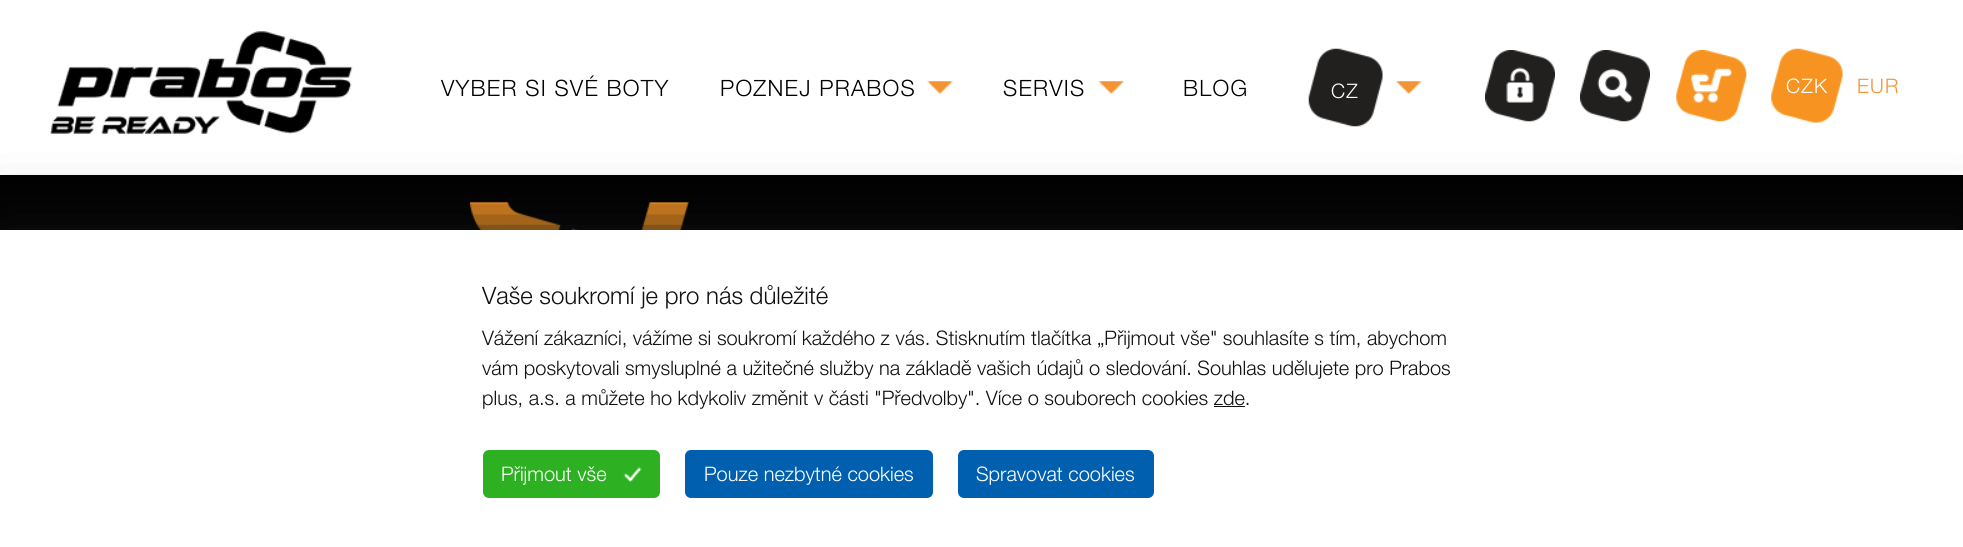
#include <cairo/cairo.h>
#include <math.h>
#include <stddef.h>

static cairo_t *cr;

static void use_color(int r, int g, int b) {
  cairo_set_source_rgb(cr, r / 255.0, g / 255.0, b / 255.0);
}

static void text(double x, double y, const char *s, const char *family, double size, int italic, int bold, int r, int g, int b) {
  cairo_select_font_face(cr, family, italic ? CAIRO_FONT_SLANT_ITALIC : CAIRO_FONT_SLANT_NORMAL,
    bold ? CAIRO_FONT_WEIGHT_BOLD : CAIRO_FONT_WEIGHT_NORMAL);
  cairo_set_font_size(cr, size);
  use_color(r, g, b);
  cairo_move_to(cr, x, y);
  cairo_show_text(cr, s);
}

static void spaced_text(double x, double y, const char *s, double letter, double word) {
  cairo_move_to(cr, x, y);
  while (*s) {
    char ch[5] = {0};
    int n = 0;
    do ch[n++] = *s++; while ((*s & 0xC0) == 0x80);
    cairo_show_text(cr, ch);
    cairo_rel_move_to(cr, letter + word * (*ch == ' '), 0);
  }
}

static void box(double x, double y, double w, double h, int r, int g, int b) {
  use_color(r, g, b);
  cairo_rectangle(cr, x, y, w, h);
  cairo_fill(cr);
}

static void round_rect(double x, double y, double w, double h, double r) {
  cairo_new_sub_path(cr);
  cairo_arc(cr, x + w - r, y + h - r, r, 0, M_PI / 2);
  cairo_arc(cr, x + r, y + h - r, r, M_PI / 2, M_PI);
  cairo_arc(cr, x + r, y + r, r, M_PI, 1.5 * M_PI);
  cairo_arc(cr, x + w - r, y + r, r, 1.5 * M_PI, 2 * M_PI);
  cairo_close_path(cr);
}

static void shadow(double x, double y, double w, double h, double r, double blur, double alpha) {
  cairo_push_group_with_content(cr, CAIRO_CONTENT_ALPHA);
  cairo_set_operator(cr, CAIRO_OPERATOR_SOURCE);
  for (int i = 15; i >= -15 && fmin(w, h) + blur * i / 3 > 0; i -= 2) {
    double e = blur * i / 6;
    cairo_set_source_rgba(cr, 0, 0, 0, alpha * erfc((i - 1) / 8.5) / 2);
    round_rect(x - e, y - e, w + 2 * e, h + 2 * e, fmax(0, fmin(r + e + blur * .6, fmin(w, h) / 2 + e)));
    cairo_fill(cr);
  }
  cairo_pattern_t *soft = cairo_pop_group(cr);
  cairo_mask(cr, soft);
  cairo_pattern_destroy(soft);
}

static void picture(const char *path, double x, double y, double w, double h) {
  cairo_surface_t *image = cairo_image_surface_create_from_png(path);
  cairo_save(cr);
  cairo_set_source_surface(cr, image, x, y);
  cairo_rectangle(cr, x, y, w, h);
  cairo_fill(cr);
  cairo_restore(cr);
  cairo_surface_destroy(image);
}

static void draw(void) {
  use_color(0, 0, 0);
  cairo_paint(cr);
  box(0, 0, 1963, 175, 255, 255, 255);
  picture("img_01.png", 50, 31, 303, 103);
  picture("img_02.png", 927, 81, 26, 13);
  picture("img_03.png", 1098, 81, 26, 13);
  picture("img_04.png", 1396, 81, 26, 13);
  picture("img_05.png", 1308, 48, 75, 79);
  picture("img_06.png", 1485, 50, 70, 72);
  picture("img_07.png", 1580, 50, 70, 72);
  picture("img_08.png", 1676, 50, 71, 72);
  picture("img_09.png", 1771, 48, 72, 75);
  picture("img_10.png", 470, 201, 219, 29);
  use_color(17, 17, 17);
  shadow(0, 230, 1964, 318, 0, 31, 1);
  box(0, 230, 1963, 317, 255, 255, 255);
  box(1214, 406, 31, 1, 17, 17, 17);
  use_color(45, 177, 35);
  round_rect(483, 450, 177, 48, 6);
  cairo_fill(cr);
  picture("img_11.png", 623, 467, 19, 15);
  use_color(0, 96, 175);
  round_rect(685, 450, 248, 48, 6);
  cairo_fill(cr);
  round_rect(958, 450, 196, 48, 6);
  cairo_fill(cr);
  cairo_select_font_face(cr, "Helvetica Neue Light", CAIRO_FONT_SLANT_NORMAL, CAIRO_FONT_WEIGHT_NORMAL);
  cairo_set_font_size(cr, 22.5);
  use_color(0, 0, 0);
  spaced_text(441, 96, "VYBER SI SVÉ BOTY", 1.25, 0);
  spaced_text(720, 96, "POZNEJ PRABOS", 1.25, 0);
  spaced_text(1003, 96, "SERVIS", 1.25, 0);
  spaced_text(1183, 96, "BLOG", 1.25, 0);
  cairo_set_font_size(cr, 20);
  use_color(255, 255, 255);
  spaced_text(1331, 98, "CZ", 1.25, 0);
  spaced_text(1786, 93, "CZK", 1.25, 0);
  use_color(244, 147, 49);
  spaced_text(1857, 93, "EUR", 1.25, 0);
  text(482, 304, "Vaše soukromí je pro nás důležité", "Helvetica Neue Light", 24, 0, 0, 17, 17, 17);
  text(482, 345, "Vážení zákazníci, vážíme si soukromí každého z vás. Stisknutím tlačítka „Přijmout vše\" souhlasíte s tím, abychom", "Helvetica Neue Light", 20, 0, 0, 17, 17, 17);
  text(482, 375, "vám poskytovali smysluplné a užitečné služby na základě vašich údajů o sledování. Souhlas udělujete pro Prabos", "Helvetica Neue Light", 20, 0, 0, 17, 17, 17);
  text(482, 405, "plus, a.s. a můžete ho kdykoliv změnit v části \"Předvolby\". Více o souborech cookies zde.", "Helvetica Neue Light", 20, 0, 0, 17, 17, 17);
  text(501, 481, "Přijmout vše", "Helvetica Neue Light", 20, 0, 0, 255, 255, 255);
  text(704, 481, "Pouze nezbytné cookies", "Helvetica Neue Light", 20, 0, 0, 255, 255, 255);
  text(976, 481, "Spravovat cookies", "Helvetica Neue Light", 20, 0, 0, 255, 255, 255);
}

int main(void) {
  cairo_surface_t *surface = cairo_image_surface_create(CAIRO_FORMAT_RGB24, 1963, 547);
  cr = cairo_create(surface);
  cairo_font_options_t *options = cairo_font_options_create();
  cairo_font_options_set_hint_metrics(options, CAIRO_HINT_METRICS_OFF);
  cairo_font_options_set_hint_style(options, CAIRO_HINT_STYLE_NONE);
  cairo_set_font_options(cr, options);
  cairo_set_miter_limit(cr, 4);
  draw();
  cairo_surface_write_to_png(surface, "out.png");
  cairo_font_options_destroy(options);
  cairo_destroy(cr);
  cairo_surface_destroy(surface);
  return 0;
}
